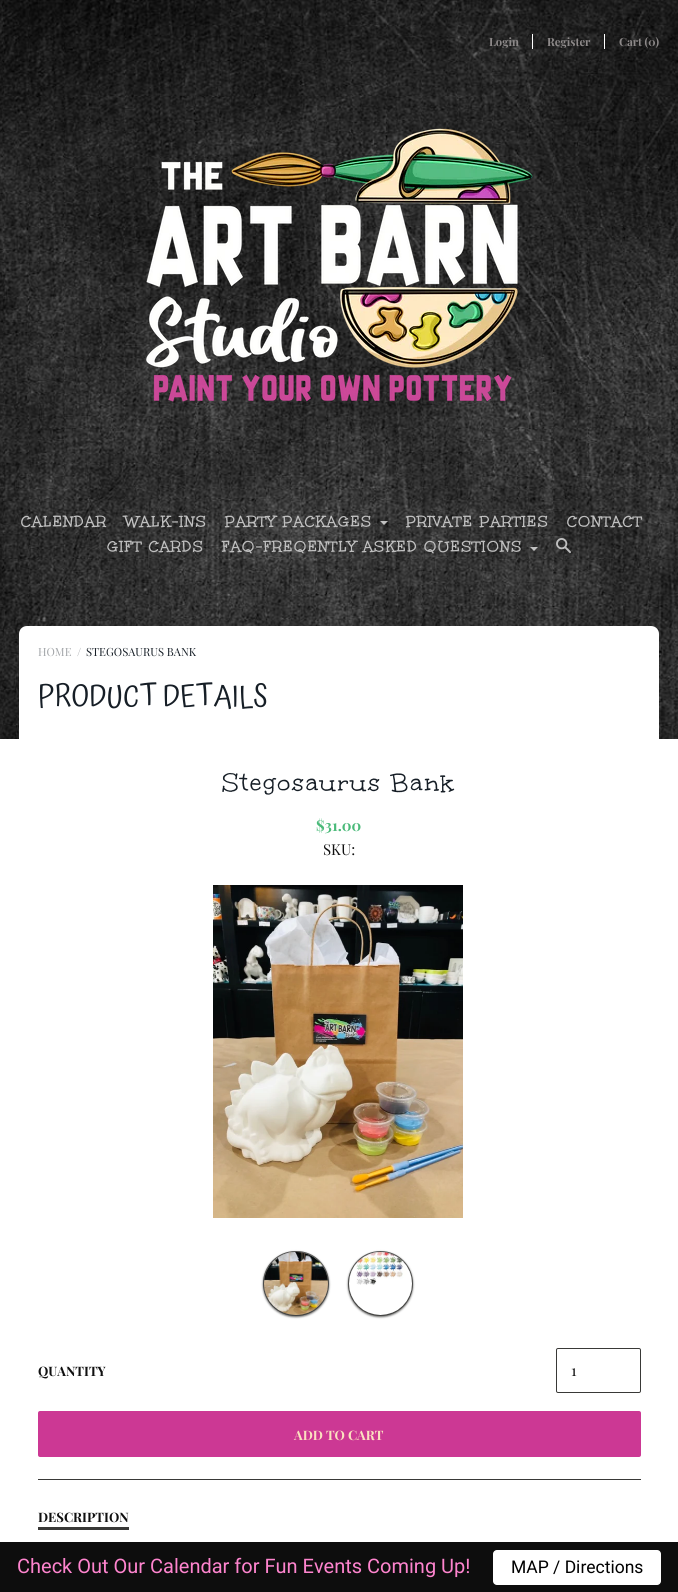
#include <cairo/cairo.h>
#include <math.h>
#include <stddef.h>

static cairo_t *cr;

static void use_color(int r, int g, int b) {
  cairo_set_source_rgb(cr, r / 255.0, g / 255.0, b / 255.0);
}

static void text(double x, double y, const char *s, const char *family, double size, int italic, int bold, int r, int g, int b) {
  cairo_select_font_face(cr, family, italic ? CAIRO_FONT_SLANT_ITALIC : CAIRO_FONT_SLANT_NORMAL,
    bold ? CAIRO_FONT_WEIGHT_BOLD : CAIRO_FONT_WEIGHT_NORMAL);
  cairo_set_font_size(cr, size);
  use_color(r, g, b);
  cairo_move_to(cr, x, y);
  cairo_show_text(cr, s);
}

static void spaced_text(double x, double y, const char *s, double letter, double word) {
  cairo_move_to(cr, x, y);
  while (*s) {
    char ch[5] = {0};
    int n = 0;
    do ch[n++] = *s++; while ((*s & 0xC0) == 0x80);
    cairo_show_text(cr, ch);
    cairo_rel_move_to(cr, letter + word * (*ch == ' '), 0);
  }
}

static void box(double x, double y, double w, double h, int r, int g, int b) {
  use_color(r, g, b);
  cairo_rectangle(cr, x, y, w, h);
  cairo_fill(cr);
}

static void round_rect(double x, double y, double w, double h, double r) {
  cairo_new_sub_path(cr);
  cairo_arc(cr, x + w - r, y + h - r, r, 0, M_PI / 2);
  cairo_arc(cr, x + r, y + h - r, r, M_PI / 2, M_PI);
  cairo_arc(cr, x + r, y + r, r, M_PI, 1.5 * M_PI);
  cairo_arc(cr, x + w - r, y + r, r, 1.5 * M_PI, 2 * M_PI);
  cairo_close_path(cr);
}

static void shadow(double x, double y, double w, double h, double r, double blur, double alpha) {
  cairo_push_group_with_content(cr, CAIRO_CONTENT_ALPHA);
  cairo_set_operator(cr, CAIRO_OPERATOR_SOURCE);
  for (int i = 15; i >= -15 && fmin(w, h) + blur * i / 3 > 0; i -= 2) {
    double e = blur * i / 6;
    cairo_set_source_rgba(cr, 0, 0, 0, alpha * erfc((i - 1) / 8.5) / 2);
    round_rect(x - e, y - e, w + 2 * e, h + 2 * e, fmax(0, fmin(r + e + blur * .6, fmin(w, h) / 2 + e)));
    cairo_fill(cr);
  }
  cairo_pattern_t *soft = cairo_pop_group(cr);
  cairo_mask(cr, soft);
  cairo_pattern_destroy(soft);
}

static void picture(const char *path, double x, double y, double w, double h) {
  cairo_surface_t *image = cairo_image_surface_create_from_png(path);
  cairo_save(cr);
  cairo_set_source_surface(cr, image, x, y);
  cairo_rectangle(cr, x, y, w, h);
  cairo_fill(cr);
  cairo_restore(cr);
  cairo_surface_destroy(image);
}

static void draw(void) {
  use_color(255, 255, 255);
  cairo_paint(cr);
  picture("img_01.png", 0, 0, 678, 739);
  box(532, 34, 1, 15, 255, 255, 255);
  box(604, 34, 1, 15, 255, 255, 255);
  picture("img_02.png", 146, 128, 387, 274);
  cairo_set_source_rgba(cr, 1, 1, 1, 0.7);
  cairo_new_path(cr);
  cairo_move_to(cr, 380, 521);
  cairo_line_to(cr, 388, 521);
  cairo_line_to(cr, 384, 525);
  cairo_close_path(cr);
  cairo_fill(cr);
  cairo_new_path(cr);
  cairo_move_to(cr, 530, 547);
  cairo_line_to(cr, 538, 547);
  cairo_line_to(cr, 534, 551);
  cairo_close_path(cr);
  cairo_fill(cr);
  picture("img_03.png", 556, 538, 15, 15);
  use_color(255, 255, 255);
  cairo_new_path(cr);
  cairo_move_to(cr, 27, 626);
  cairo_line_to(cr, 651, 626);
  cairo_curve_to(cr, 655.5, 626, 659, 629.5, 659, 634);
  cairo_line_to(cr, 659, 739);
  cairo_line_to(cr, 19, 739);
  cairo_line_to(cr, 19, 634);
  cairo_curve_to(cr, 19, 629.5, 22.5, 626, 27, 626);
  cairo_close_path(cr);
  cairo_fill(cr);
  picture("img_04.png", 213, 885, 250, 333);
  use_color(57, 57, 55);
  shadow(263, 1252, 66, 65, 32.5, 1, 0.8);
  round_rect(263.5, 1251.5, 65, 64, 32);
  cairo_set_source_rgba(cr, 0.224, 0.224, 0.216, 0.8);
  cairo_set_line_width(cr, 1);
  cairo_stroke(cr);
  picture("img_05.png", 264, 1252, 64, 63);
  use_color(57, 57, 55);
  shadow(348, 1252, 65, 65, 32.5, 1, 0.8);
  cairo_arc(cr, 380.5, 1283.5, 32, 0, 2 * M_PI);
  cairo_set_source_rgba(cr, 0.224, 0.224, 0.216, 0.8);
  cairo_stroke(cr);
  picture("img_06.png", 349, 1252, 63, 63);
  round_rect(556.5, 1348.5, 84, 44, 1.5);
  use_color(57, 57, 55);
  cairo_stroke(cr);
  use_color(204, 56, 148);
  round_rect(38, 1411, 603, 46, 2);
  cairo_fill(cr);
  box(38, 1479, 603, 1, 57, 57, 55);
  box(38, 1527, 91, 3, 57, 57, 55);
  box(0, 1542, 678, 50, 13, 13, 13);
  use_color(255, 255, 255);
  round_rect(493, 1550, 168, 35, 4);
  cairo_fill(cr);
  text(489, 46, "Login", "Playfair Display", 11.25, 0, 1, 141, 137, 137);
  text(547, 46, "Register", "Playfair Display", 11.25, 0, 1, 141, 137, 137);
  text(619, 46, "Cart (0)", "Playfair Display", 11.25, 0, 1, 141, 137, 137);
  cairo_select_font_face(cr, "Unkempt", CAIRO_FONT_SLANT_NORMAL, CAIRO_FONT_WEIGHT_BOLD);
  cairo_set_font_size(cr, 15.1);
  use_color(192, 192, 192);
  spaced_text(21, 527, "CALENDAR", 1.8, 0);
  spaced_text(125, 527, "WALK-INS", 1.8, 0);
  spaced_text(225, 527, "PARTY PACKAGES", 1.8, 0);
  spaced_text(406, 527, "PRIVATE PARTIES", 1.8, 0);
  spaced_text(567, 527, "CONTACT", 1.8, 0);
  spaced_text(107, 552, "GIFT CARDS", 1.8, 0);
  spaced_text(222, 552, "FAQ-FREQENTLY ASKED QUESTIONS", 1.8, 0);
  text(38, 656, "HOME", "Playfair Display", 11.25, 0, 0, 162, 165, 168);
  text(77, 656, "/", "Playfair Display", 11.25, 0, 0, 162, 165, 168);
  text(86, 656, "STEGOSAURUS BANK", "Playfair Display", 11.25, 0, 0, 22, 30, 38);
  text(38, 706, "PRODUCT DETAILS", "Atma", 30, 0, 0, 22, 30, 38);
  cairo_select_font_face(cr, "Unkempt", CAIRO_FONT_SLANT_NORMAL, CAIRO_FONT_WEIGHT_NORMAL);
  cairo_set_font_size(cr, 26.25);
  spaced_text(222, 792, "Stegosaurus Bank", 1.8, 0);
  text(316, 831, "$31.00", "Playfair Display", 15, 0, 1, 74, 186, 121);
  text(323, 855, "SKU:", "Playfair Display", 15, 0, 0, 16, 16, 16);
  text(38, 1376, "QUANTITY", "Playfair Display", 13, 0, 1, 16, 16, 16);
  text(571, 1376, "1", "Playfair Display", 15, 0, 0, 16, 16, 16);
  text(294, 1440, "ADD TO CART", "Playfair Display", 13, 0, 1, 251, 225, 191);
  text(38, 1522, "DESCRIPTION", "Playfair Display", 13, 0, 1, 16, 16, 16);
  text(17, 1573, "Check Out Our Calendar for Fun Events Coming Up!", "Roboto", 20, 0, 0, 254, 132, 206);
  text(511, 1573, "MAP / Directions", "Roboto", 17.5, 0, 0, 0, 0, 0);
}

int main(void) {
  cairo_surface_t *surface = cairo_image_surface_create(CAIRO_FORMAT_RGB24, 678, 1592);
  cr = cairo_create(surface);
  cairo_font_options_t *options = cairo_font_options_create();
  cairo_font_options_set_hint_metrics(options, CAIRO_HINT_METRICS_OFF);
  cairo_font_options_set_hint_style(options, CAIRO_HINT_STYLE_NONE);
  cairo_set_font_options(cr, options);
  cairo_set_miter_limit(cr, 4);
  draw();
  cairo_surface_write_to_png(surface, "out.png");
  cairo_font_options_destroy(options);
  cairo_destroy(cr);
  cairo_surface_destroy(surface);
  return 0;
}
